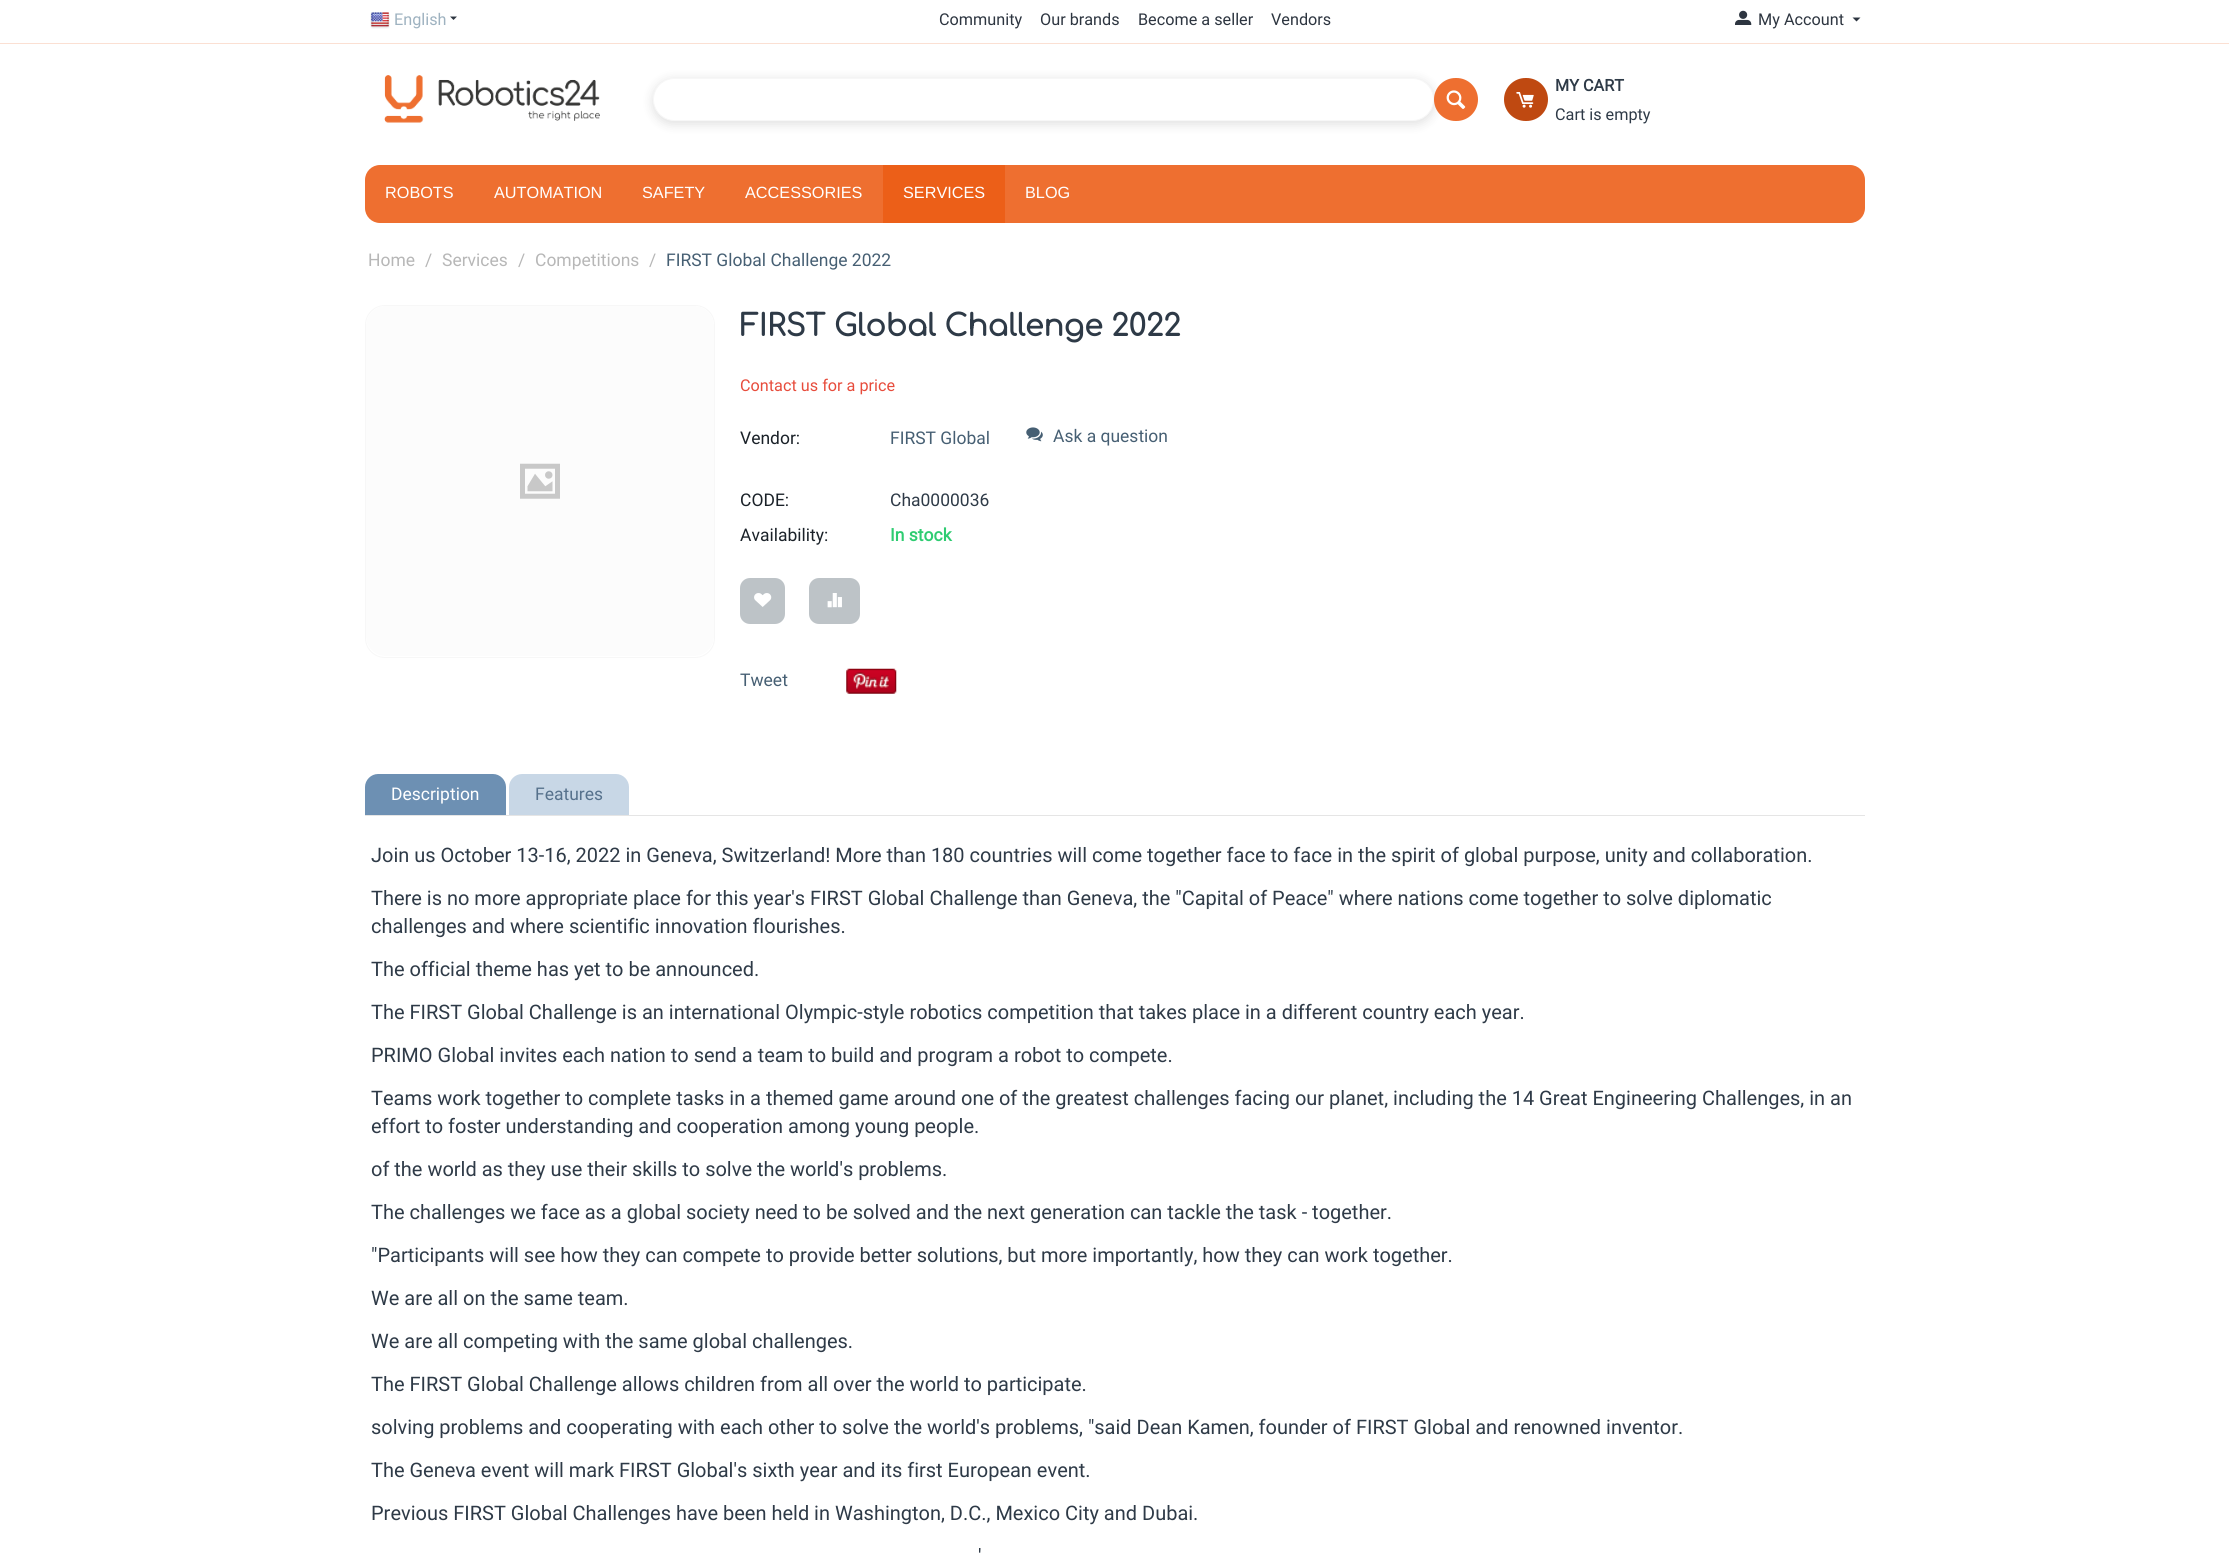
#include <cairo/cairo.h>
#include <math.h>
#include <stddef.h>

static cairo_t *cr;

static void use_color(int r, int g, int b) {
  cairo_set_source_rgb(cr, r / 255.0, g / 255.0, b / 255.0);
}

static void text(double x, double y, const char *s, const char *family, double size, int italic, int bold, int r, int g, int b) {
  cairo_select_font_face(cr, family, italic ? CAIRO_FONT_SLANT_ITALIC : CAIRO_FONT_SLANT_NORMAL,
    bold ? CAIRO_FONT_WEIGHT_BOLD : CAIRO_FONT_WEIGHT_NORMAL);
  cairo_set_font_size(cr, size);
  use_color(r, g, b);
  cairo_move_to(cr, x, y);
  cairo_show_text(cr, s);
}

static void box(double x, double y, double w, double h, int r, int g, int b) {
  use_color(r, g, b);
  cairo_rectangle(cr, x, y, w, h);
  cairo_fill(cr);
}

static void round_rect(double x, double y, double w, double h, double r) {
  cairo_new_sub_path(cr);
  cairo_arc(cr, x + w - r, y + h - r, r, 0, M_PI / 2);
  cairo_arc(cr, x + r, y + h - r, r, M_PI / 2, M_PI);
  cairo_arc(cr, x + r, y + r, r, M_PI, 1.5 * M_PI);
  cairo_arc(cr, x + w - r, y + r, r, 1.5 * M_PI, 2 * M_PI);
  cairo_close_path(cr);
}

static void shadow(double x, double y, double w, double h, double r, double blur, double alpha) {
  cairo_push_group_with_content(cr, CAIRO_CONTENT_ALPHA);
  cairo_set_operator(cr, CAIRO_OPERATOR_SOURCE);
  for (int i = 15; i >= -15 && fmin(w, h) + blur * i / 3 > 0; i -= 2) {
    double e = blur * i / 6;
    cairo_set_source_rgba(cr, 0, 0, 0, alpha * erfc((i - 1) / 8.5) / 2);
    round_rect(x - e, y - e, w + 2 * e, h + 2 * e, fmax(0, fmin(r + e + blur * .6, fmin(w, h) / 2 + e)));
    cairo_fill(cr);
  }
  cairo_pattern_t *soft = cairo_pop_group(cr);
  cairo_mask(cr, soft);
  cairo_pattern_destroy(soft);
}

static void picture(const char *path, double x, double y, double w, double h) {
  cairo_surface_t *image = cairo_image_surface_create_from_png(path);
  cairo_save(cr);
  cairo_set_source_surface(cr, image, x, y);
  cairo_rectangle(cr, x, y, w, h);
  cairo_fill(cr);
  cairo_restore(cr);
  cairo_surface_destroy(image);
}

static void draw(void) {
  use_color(255, 255, 255);
  cairo_paint(cr);
  box(0, 43, 2229, 1, 251, 224, 211);
  picture("img_01.png", 370, 12, 20, 17);
  use_color(45, 53, 64);
  cairo_new_path(cr);
  cairo_move_to(cr, 453.5, 20);
  cairo_line_to(cr, 450, 16.5);
  cairo_line_to(cr, 457, 16.5);
  cairo_close_path(cr);
  cairo_fill(cr);
  picture("img_02.png", 1735, 10, 17, 15);
  cairo_new_path(cr);
  cairo_move_to(cr, 1856.5, 21.5);
  cairo_line_to(cr, 1852.5, 17.5);
  cairo_line_to(cr, 1860.5, 17.5);
  cairo_close_path(cr);
  cairo_fill(cr);
  picture("img_03.png", 384, 75, 216, 48);
  use_color(0, 0, 0);
  shadow(653, 80, 781, 44, 22, 5.5, 0.13);
  use_color(255, 255, 255);
  round_rect(653.5, 78.5, 780, 42, 21);
  cairo_fill_preserve(cr);
  use_color(247, 247, 247);
  cairo_set_line_width(cr, 1);
  cairo_stroke(cr);
  use_color(238, 111, 48);
  round_rect(1434, 78, 44, 43, 21.5);
  cairo_fill(cr);
  picture("img_04.png", 1446, 90, 20, 19);
  use_color(191, 73, 17);
  round_rect(1504, 78, 44, 43, 21.5);
  cairo_fill(cr);
  picture("img_05.png", 1516, 92, 18, 16);
  use_color(238, 111, 48);
  round_rect(365, 165, 1500, 58, 15);
  cairo_fill(cr);
  box(883, 165, 122, 58, 236, 95, 24);
  round_rect(365.5, 305.5, 349, 352, 19.5);
  use_color(247, 247, 247);
  cairo_stroke(cr);
  use_color(252, 252, 252);
  round_rect(366, 306, 348, 350, 20);
  cairo_fill(cr);
  picture("img_06.png", 520, 463, 40, 36);
  picture("img_07.png", 1026, 427, 17, 15);
  use_color(189, 195, 199);
  round_rect(740, 578, 45, 46, 10);
  cairo_fill(cr);
  picture("img_08.png", 754, 593, 18, 14);
  round_rect(809, 578, 51, 46, 10);
  cairo_fill(cr);
  picture("img_09.png", 827, 593, 15, 15);
  picture("img_10.png", 846, 668, 51, 26);
  box(365, 815, 1500, 1, 229, 229, 229);
  use_color(109, 144, 179);
  cairo_new_path(cr);
  cairo_move_to(cr, 378, 774);
  cairo_line_to(cr, 493, 774);
  cairo_curve_to(cr, 500, 774, 506, 780, 506, 787);
  cairo_line_to(cr, 506, 815);
  cairo_line_to(cr, 365, 815);
  cairo_line_to(cr, 365, 787);
  cairo_curve_to(cr, 365, 780, 371, 774, 378, 774);
  cairo_close_path(cr);
  cairo_fill(cr);
  use_color(200, 215, 230);
  cairo_new_path(cr);
  cairo_move_to(cr, 522, 774);
  cairo_line_to(cr, 616, 774);
  cairo_curve_to(cr, 623, 774, 629, 780, 629, 787);
  cairo_line_to(cr, 629, 815);
  cairo_line_to(cr, 509, 815);
  cairo_line_to(cr, 509, 787);
  cairo_curve_to(cr, 509, 780, 515, 774, 522, 774);
  cairo_close_path(cr);
  cairo_fill(cr);
  text(394, 25, "English", "Roboto", 16.25, 0, 0, 158, 178, 192);
  text(939, 25, "Community", "Roboto", 16.25, 0, 0, 45, 53, 64);
  text(1040, 25, "Our brands", "Roboto", 16.25, 0, 0, 45, 53, 64);
  text(1138, 25, "Become a seller", "Roboto", 16.25, 0, 0, 45, 53, 64);
  text(1271, 25, "Vendors", "Roboto", 16.25, 0, 0, 45, 53, 64);
  text(1758, 25, "My Account", "Roboto", 16.25, 0, 0, 45, 53, 64);
  text(1555, 91, "MY CART", "Roboto", 16.25, 0, 1, 46, 58, 71);
  text(1555, 120, "Cart is empty", "Roboto", 16.25, 0, 0, 46, 58, 71);
  text(385, 198, "ROBOTS", "Liberation Sans", 16.25, 0, 0, 255, 255, 255);
  text(494, 198, "AUTOMATION", "Liberation Sans", 16.25, 0, 0, 255, 255, 255);
  text(642, 198, "SAFETY", "Liberation Sans", 16.25, 0, 0, 255, 255, 255);
  text(745, 198, "ACCESSORIES", "Liberation Sans", 16.25, 0, 0, 255, 255, 255);
  text(903, 198, "SERVICES", "Liberation Sans", 16.25, 0, 0, 255, 255, 255);
  text(1025, 198, "BLOG", "Liberation Sans", 16.25, 0, 0, 255, 255, 255);
  text(368, 266, "Home", "Roboto", 17.5, 0, 0, 183, 183, 183);
  text(425, 266, "/", "Roboto", 17.5, 0, 0, 183, 183, 183);
  text(442, 266, "Services", "Roboto", 17.5, 0, 0, 183, 183, 183);
  text(518, 266, "/", "Roboto", 17.5, 0, 0, 183, 183, 183);
  text(535, 266, "Competitions", "Roboto", 17.5, 0, 0, 183, 183, 183);
  text(649, 266, "/", "Roboto", 17.5, 0, 0, 183, 183, 183);
  text(666, 266, "FIRST Global Challenge 2022", "Roboto", 17.5, 0, 0, 70, 95, 115);
  text(740, 336, "FIRST Global Challenge 2022", "Comfortaa", 30, 0, 1, 46, 58, 71);
  text(740, 391, "Contact us for a price", "Roboto", 16.25, 0, 0, 231, 76, 60);
  text(740, 444, "Vendor:", "Roboto", 17.5, 0, 0, 26, 33, 40);
  text(890, 444, "FIRST Global", "Roboto", 17.5, 0, 0, 70, 95, 115);
  text(1053, 442, "Ask a question", "Roboto", 17.5, 0, 0, 70, 95, 115);
  text(740, 506, "CODE:", "Roboto", 17.5, 0, 0, 26, 33, 40);
  text(890, 506, "Cha0000036", "Roboto", 17.5, 0, 0, 46, 58, 71);
  text(740, 541, "Availability:", "Roboto", 17.5, 0, 0, 26, 33, 40);
  text(890, 541, "In stock", "Roboto", 17.5, 0, 1, 46, 204, 113);
  text(740, 686, "Tweet", "Roboto", 17.5, 0, 0, 70, 95, 115);
  text(391, 800, "Description", "Roboto", 17.5, 0, 0, 255, 255, 255);
  text(535, 800, "Features", "Roboto", 17.5, 0, 0, 86, 113, 140);
  text(371, 862, "Join us October 13-16, 2022 in Geneva, Switzerland! More than 180 countries will come together face to face in the spirit of global purpose, unity and collaboration.", "Roboto", 20, 0, 0, 46, 58, 71);
  text(371, 905, "There is no more appropriate place for this year's FIRST Global Challenge than Geneva, the \"Capital of Peace\" where nations come together to solve diplomatic", "Roboto", 20, 0, 0, 46, 58, 71);
  text(371, 933, "challenges and where scientific innovation flourishes.", "Roboto", 20, 0, 0, 46, 58, 71);
  text(371, 976, "The official theme has yet to be announced.", "Roboto", 20, 0, 0, 46, 58, 71);
  text(371, 1019, "The FIRST Global Challenge is an international Olympic-style robotics competition that takes place in a different country each year.", "Roboto", 20, 0, 0, 46, 58, 71);
  text(371, 1062, "PRIMO Global invites each nation to send a team to build and program a robot to compete.", "Roboto", 20, 0, 0, 46, 58, 71);
  text(371, 1105, "Teams work together to complete tasks in a themed game around one of the greatest challenges facing our planet, including the 14 Great Engineering Challenges, in an", "Roboto", 20, 0, 0, 46, 58, 71);
  text(371, 1133, "effort to foster understanding and cooperation among young people.", "Roboto", 20, 0, 0, 46, 58, 71);
  text(371, 1176, "of the world as they use their skills to solve the world's problems.", "Roboto", 20, 0, 0, 46, 58, 71);
  text(371, 1219, "The challenges we face as a global society need to be solved and the next generation can tackle the task - together.", "Roboto", 20, 0, 0, 46, 58, 71);
  text(371, 1262, "\"Participants will see how they can compete to provide better solutions, but more importantly, how they can work together.", "Roboto", 20, 0, 0, 46, 58, 71);
  text(371, 1305, "We are all on the same team.", "Roboto", 20, 0, 0, 46, 58, 71);
  text(371, 1348, "We are all competing with the same global challenges.", "Roboto", 20, 0, 0, 46, 58, 71);
  text(371, 1391, "The FIRST Global Challenge allows children from all over the world to participate.", "Roboto", 20, 0, 0, 46, 58, 71);
  text(371, 1434, "solving problems and cooperating with each other to solve the world's problems, \"said Dean Kamen, founder of FIRST Global and renowned inventor.", "Roboto", 20, 0, 0, 46, 58, 71);
  text(371, 1477, "The Geneva event will mark FIRST Global's sixth year and its first European event.", "Roboto", 20, 0, 0, 46, 58, 71);
  text(371, 1520, "Previous FIRST Global Challenges have been held in Washington, D.C., Mexico City and Dubai.", "Roboto", 20, 0, 0, 46, 58, 71);
  text(978, 1563, "'", "Roboto", 20, 0, 0, 46, 58, 71);
}

int main(void) {
  cairo_surface_t *surface = cairo_image_surface_create(CAIRO_FORMAT_RGB24, 2229, 1558);
  cr = cairo_create(surface);
  cairo_font_options_t *options = cairo_font_options_create();
  cairo_font_options_set_hint_metrics(options, CAIRO_HINT_METRICS_OFF);
  cairo_font_options_set_hint_style(options, CAIRO_HINT_STYLE_NONE);
  cairo_set_font_options(cr, options);
  cairo_set_miter_limit(cr, 4);
  draw();
  cairo_surface_write_to_png(surface, "out.png");
  cairo_font_options_destroy(options);
  cairo_destroy(cr);
  cairo_surface_destroy(surface);
  return 0;
}
